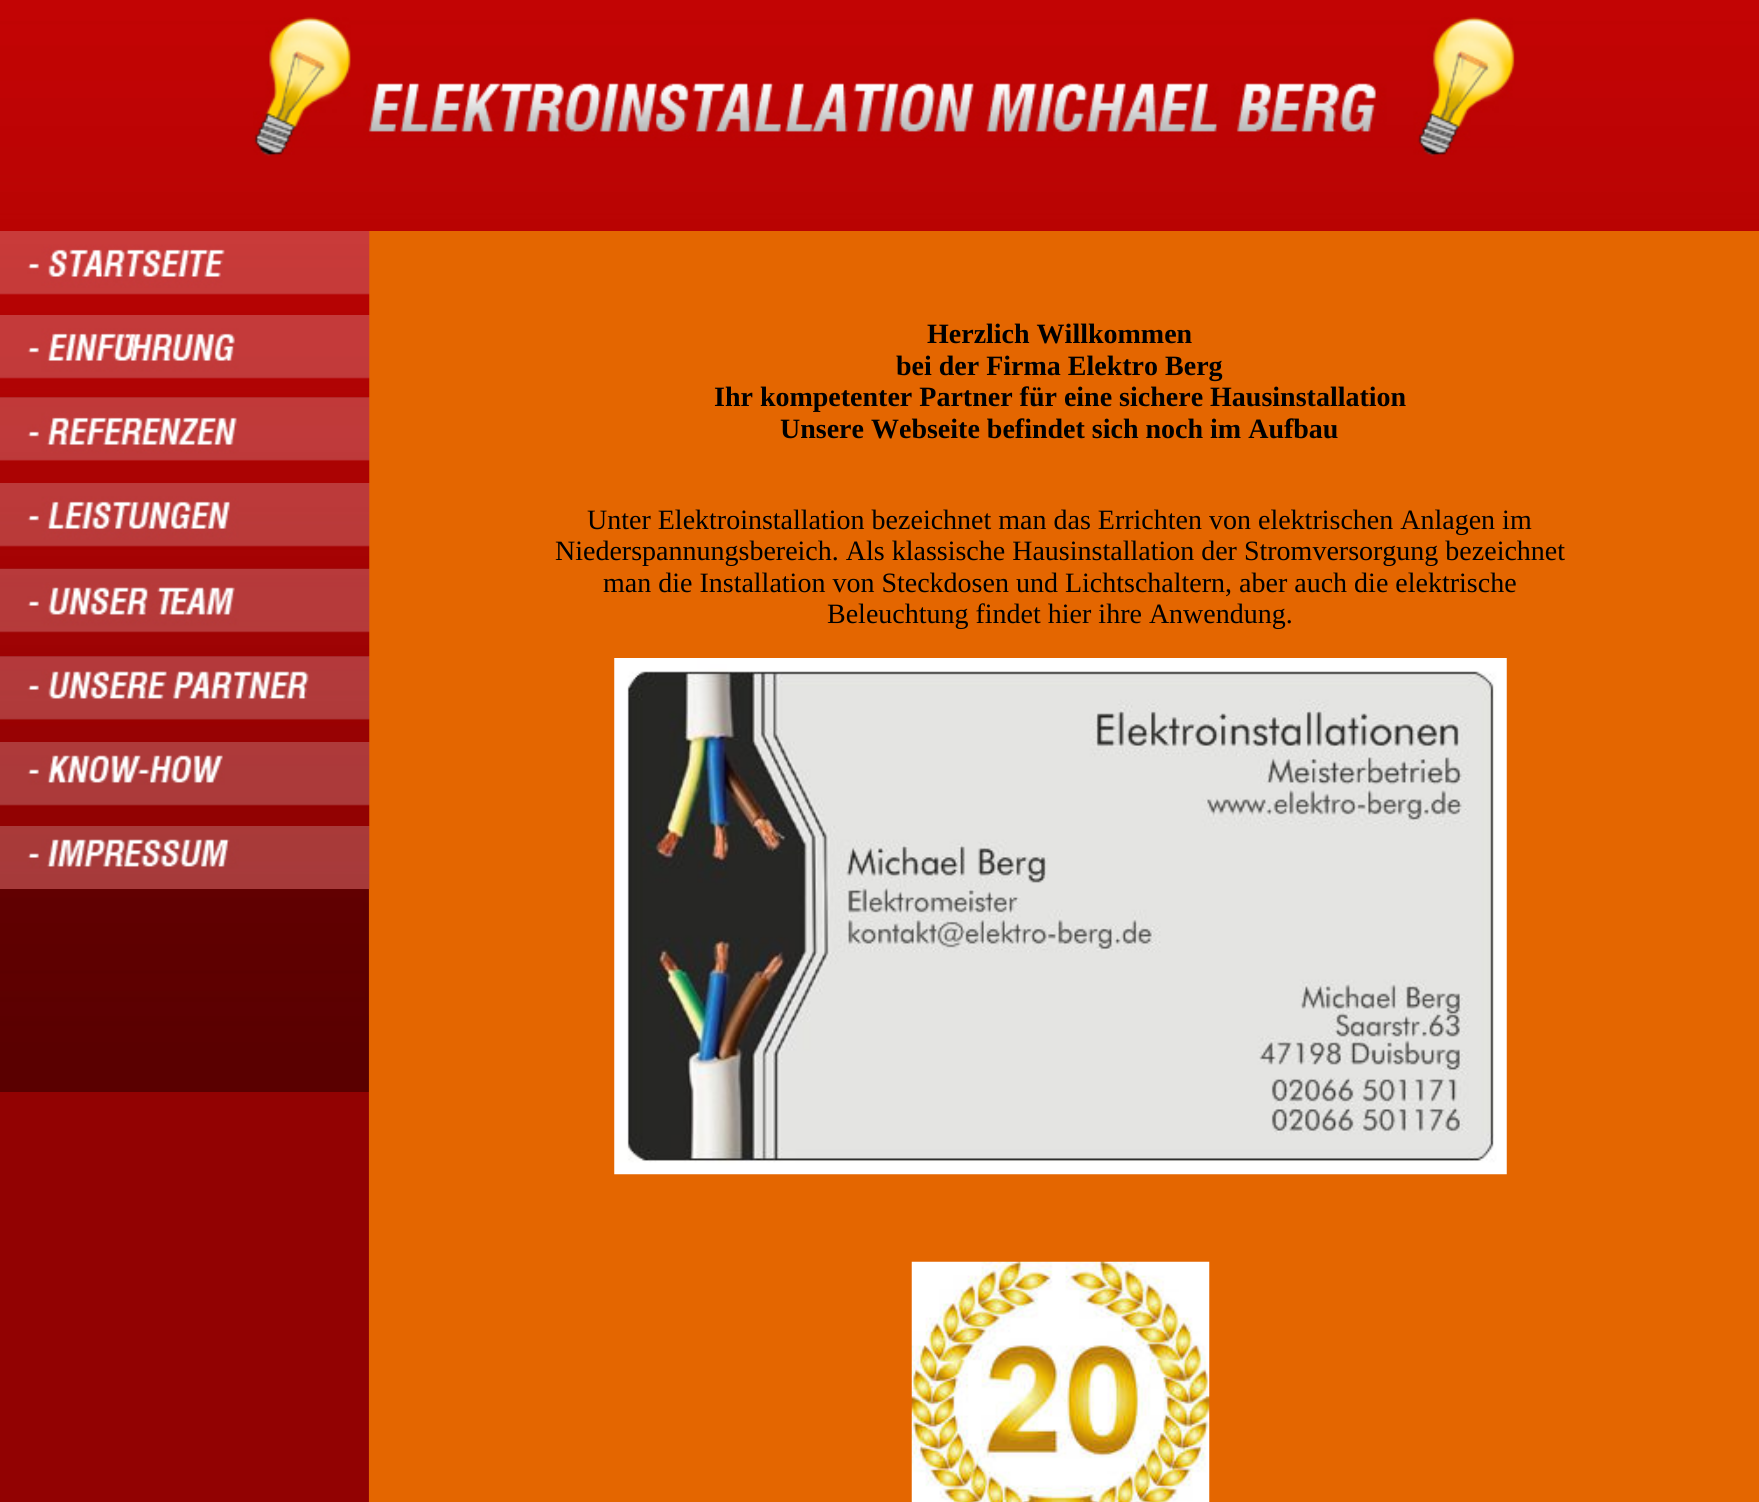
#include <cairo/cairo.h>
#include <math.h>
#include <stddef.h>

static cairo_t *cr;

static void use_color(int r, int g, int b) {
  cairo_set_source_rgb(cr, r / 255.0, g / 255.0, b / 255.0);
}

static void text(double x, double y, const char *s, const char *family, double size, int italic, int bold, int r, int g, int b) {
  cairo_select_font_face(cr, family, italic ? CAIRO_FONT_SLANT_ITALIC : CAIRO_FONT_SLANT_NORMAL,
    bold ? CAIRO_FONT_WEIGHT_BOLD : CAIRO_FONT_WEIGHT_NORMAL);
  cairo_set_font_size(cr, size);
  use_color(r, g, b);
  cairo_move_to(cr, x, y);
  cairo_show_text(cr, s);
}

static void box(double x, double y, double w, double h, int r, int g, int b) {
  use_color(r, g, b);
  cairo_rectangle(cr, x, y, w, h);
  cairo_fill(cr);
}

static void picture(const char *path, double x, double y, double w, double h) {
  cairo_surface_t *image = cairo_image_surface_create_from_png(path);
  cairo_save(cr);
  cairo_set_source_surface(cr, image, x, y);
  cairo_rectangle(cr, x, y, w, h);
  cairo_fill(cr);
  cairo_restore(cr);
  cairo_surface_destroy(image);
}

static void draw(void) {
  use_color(255, 255, 255);
  cairo_paint(cr);
  picture("img_01.png", 0, 231, 1759, 1271);
  picture("img_02.png", 0, 0, 1759, 231);
  picture("img_03.png", 253, 17, 1262, 140);
  picture("img_04.png", 0, 397, 369, 695);
  box(369, 231, 1, 1271, 227, 102, 1);
  picture("img_05.png", 0, 231, 370, 84);
  picture("img_06.png", 0, 315, 370, 83);
  picture("img_07.png", 0, 397, 370, 86);
  picture("img_08.png", 0, 483, 370, 86);
  picture("img_09.png", 0, 568, 370, 89);
  picture("img_10.png", 0, 656, 370, 86);
  picture("img_11.png", 0, 742, 370, 84);
  picture("img_12.png", 0, 826, 370, 63);
  picture("img_13.png", 614, 658, 893, 517);
  picture("img_14.png", 911, 1261, 299, 241);
  text(927, 343, "Herzlich Willkommen", "Liberation Serif", 28, 0, 1, 0, 0, 0);
  text(896, 375, "bei der Firma Elektro Berg", "Liberation Serif", 28, 0, 1, 0, 0, 0);
  text(714, 406, "Ihr kompetenter Partner für eine sichere Hausinstallation", "Liberation Serif", 28, 0, 1, 0, 0, 0);
  text(780, 438, "Unsere Webseite befindet sich noch im Aufbau", "Liberation Serif", 28, 0, 1, 0, 0, 0);
  text(587, 529, "Unter Elektroinstallation bezeichnet man das Errichten von elektrischen Anlagen im", "Liberation Serif", 28, 0, 0, 0, 0, 0);
  text(555, 560, "Niederspannungsbereich. Als klassische Hausinstallation der Stromversorgung bezeichnet", "Liberation Serif", 28, 0, 0, 0, 0, 0);
  text(603, 592, "man die Installation von Steckdosen und Lichtschaltern, aber auch die elektrische", "Liberation Serif", 28, 0, 0, 0, 0, 0);
  text(827, 623, "Beleuchtung findet hier ihre Anwendung.", "Liberation Serif", 28, 0, 0, 0, 0, 0);
}

int main(void) {
  cairo_surface_t *surface = cairo_image_surface_create(CAIRO_FORMAT_RGB24, 1759, 1502);
  cr = cairo_create(surface);
  cairo_font_options_t *options = cairo_font_options_create();
  cairo_font_options_set_hint_metrics(options, CAIRO_HINT_METRICS_OFF);
  cairo_font_options_set_hint_style(options, CAIRO_HINT_STYLE_NONE);
  cairo_set_font_options(cr, options);
  cairo_set_miter_limit(cr, 4);
  draw();
  cairo_surface_write_to_png(surface, "out.png");
  cairo_font_options_destroy(options);
  cairo_destroy(cr);
  cairo_surface_destroy(surface);
  return 0;
}
